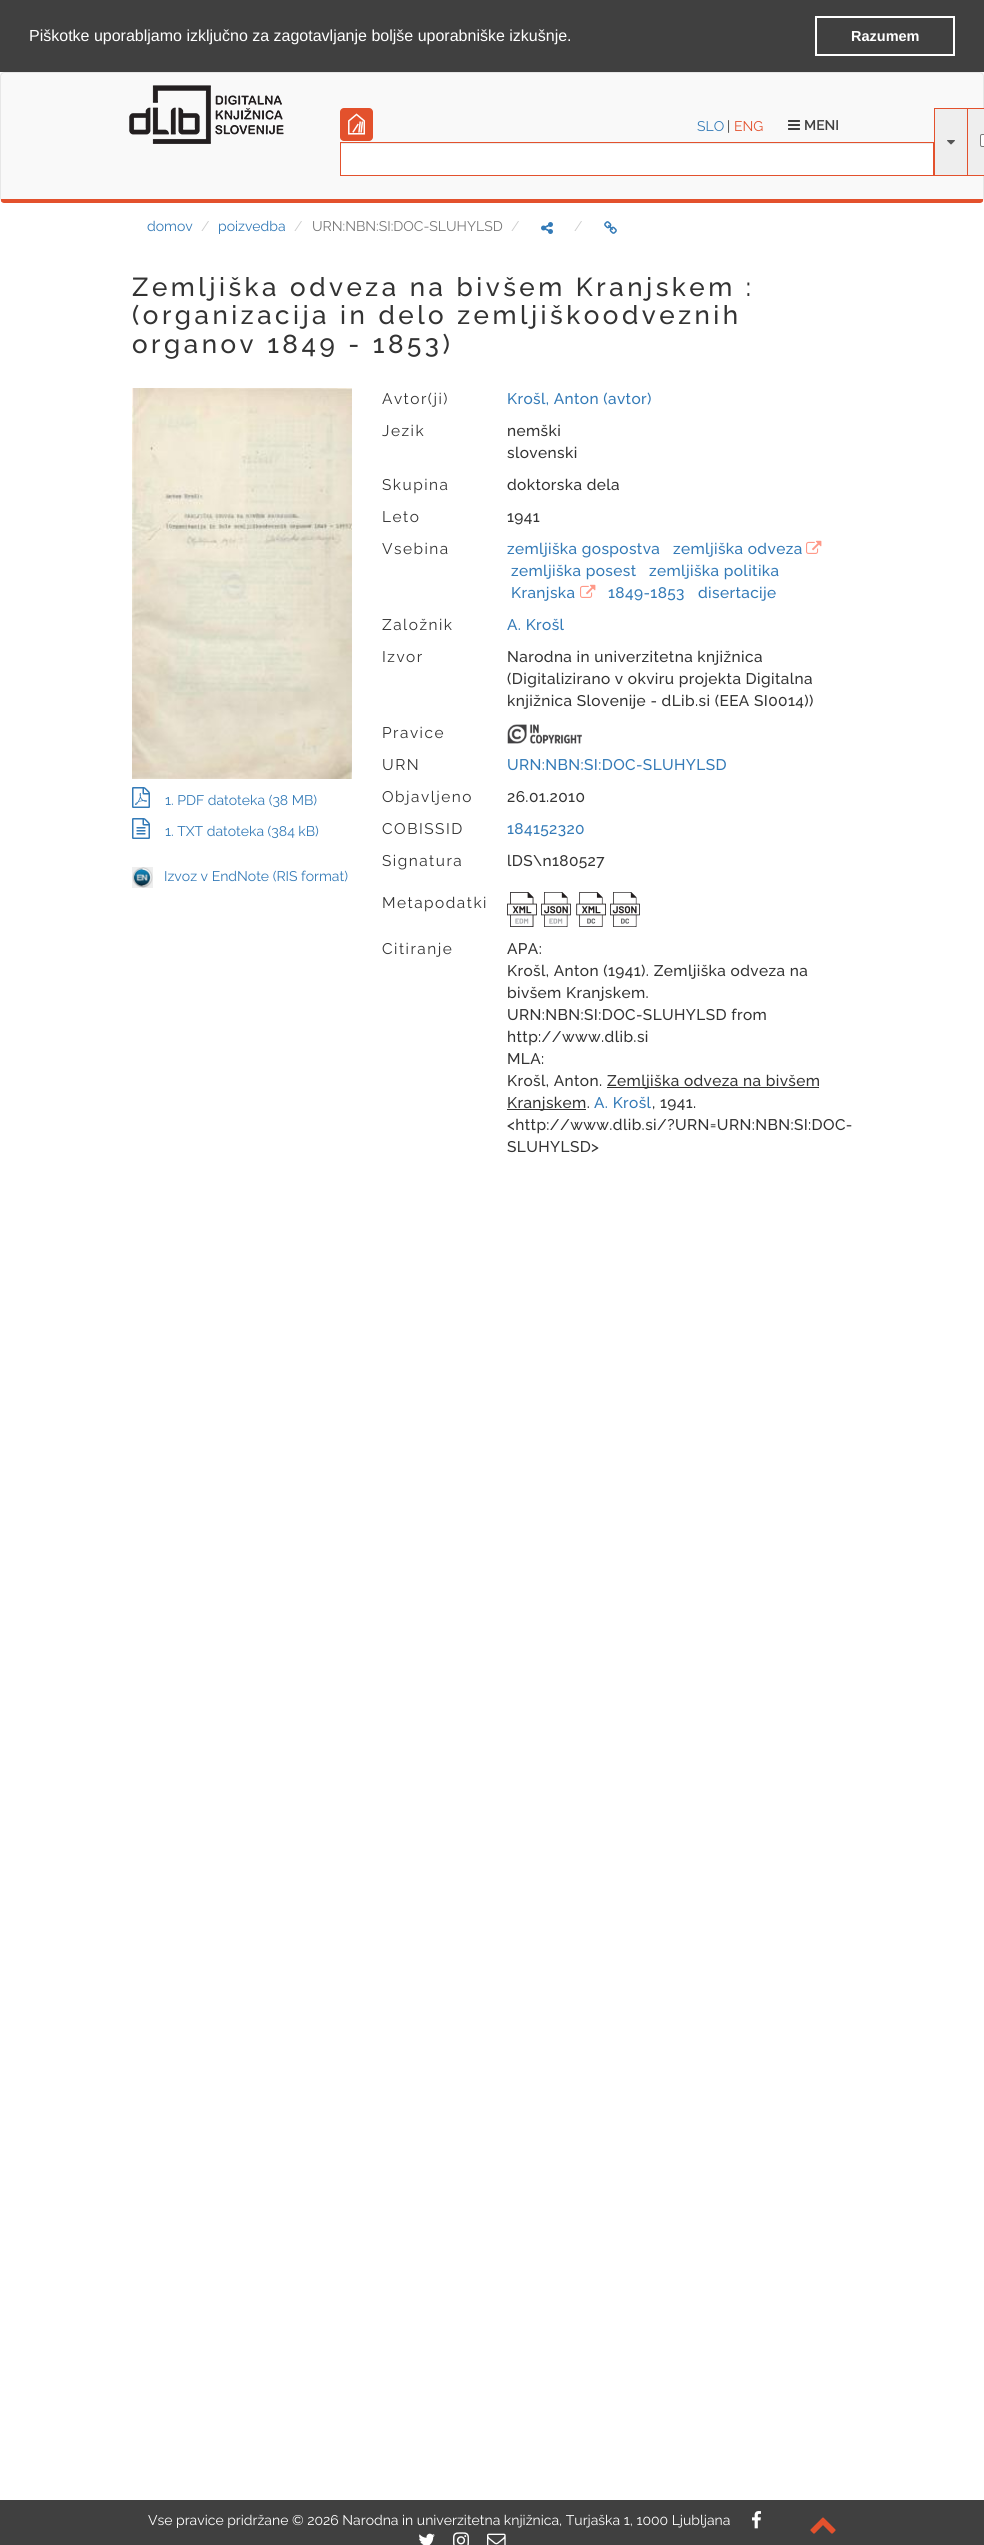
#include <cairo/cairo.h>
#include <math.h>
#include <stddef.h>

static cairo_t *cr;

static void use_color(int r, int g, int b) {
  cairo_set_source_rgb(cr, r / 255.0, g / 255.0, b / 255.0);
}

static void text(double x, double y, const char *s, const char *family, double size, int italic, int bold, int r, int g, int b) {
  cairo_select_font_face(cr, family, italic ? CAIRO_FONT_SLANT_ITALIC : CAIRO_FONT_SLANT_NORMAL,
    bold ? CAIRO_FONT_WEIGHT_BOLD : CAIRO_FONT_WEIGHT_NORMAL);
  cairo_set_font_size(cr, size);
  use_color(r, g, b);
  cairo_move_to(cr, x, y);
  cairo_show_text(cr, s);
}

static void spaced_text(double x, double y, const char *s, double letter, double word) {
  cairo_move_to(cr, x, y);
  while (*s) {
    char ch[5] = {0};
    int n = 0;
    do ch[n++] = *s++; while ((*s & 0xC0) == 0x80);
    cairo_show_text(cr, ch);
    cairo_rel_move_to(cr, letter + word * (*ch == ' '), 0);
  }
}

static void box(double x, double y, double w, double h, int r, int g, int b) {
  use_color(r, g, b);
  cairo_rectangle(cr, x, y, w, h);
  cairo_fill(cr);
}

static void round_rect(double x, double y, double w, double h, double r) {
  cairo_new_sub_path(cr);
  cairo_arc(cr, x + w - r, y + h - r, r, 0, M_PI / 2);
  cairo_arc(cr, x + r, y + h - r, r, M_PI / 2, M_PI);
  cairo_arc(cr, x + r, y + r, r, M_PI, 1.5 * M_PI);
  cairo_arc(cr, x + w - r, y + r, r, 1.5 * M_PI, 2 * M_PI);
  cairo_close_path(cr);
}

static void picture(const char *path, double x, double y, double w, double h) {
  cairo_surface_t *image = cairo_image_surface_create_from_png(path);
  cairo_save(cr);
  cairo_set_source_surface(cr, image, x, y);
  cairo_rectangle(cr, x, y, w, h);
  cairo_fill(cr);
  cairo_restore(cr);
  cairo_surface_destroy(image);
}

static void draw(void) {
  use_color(255, 255, 255);
  cairo_paint(cr);
  box(0, 0, 984, 72, 64, 64, 64);
  cairo_rectangle(cr, 816, 17, 138, 38);
  use_color(255, 255, 255);
  cairo_stroke(cr);
  use_color(249, 249, 249);
  cairo_new_path(cr);
  cairo_move_to(cr, 4, 73);
  cairo_line_to(cr, 980, 73);
  cairo_curve_to(cr, 982, 73, 983, 74, 983, 76);
  cairo_line_to(cr, 983, 199);
  cairo_line_to(cr, 1, 199);
  cairo_line_to(cr, 1, 76);
  cairo_curve_to(cr, 1, 74, 2, 73, 4, 73);
  cairo_close_path(cr);
  cairo_fill(cr);
  use_color(231, 231, 231);
  cairo_new_path(cr);
  cairo_move_to(cr, 4, 72);
  cairo_line_to(cr, 1, 73);
  cairo_line_to(cr, 2, 74);
  cairo_line_to(cr, 4, 73);
  cairo_line_to(cr, 980, 73);
  cairo_line_to(cr, 982, 74);
  cairo_line_to(cr, 983, 73);
  cairo_line_to(cr, 980, 72);
  cairo_close_path(cr);
  cairo_fill(cr);
  cairo_new_path(cr);
  cairo_move_to(cr, 984, 199);
  cairo_line_to(cr, 984, 76);
  cairo_line_to(cr, 983, 73);
  cairo_line_to(cr, 982, 74);
  cairo_line_to(cr, 983, 76);
  cairo_line_to(cr, 983, 199);
  cairo_line_to(cr, 983, 201);
  cairo_close_path(cr);
  cairo_fill(cr);
  use_color(227, 81, 45);
  cairo_new_path(cr);
  cairo_move_to(cr, 4, 203);
  cairo_line_to(cr, 980, 203);
  cairo_curve_to(cr, 981, 203, 983, 202, 983, 201);
  cairo_line_to(cr, 983, 199);
  cairo_line_to(cr, 1, 199);
  cairo_line_to(cr, 1, 201);
  cairo_curve_to(cr, 1, 202, 3, 203, 4, 203);
  cairo_close_path(cr);
  cairo_fill(cr);
  use_color(231, 231, 231);
  cairo_new_path(cr);
  cairo_move_to(cr, 0, 76);
  cairo_line_to(cr, 0, 199);
  cairo_line_to(cr, 1, 201);
  cairo_line_to(cr, 1, 199);
  cairo_line_to(cr, 1, 76);
  cairo_line_to(cr, 2, 74);
  cairo_line_to(cr, 1, 73);
  cairo_close_path(cr);
  cairo_fill(cr);
  picture("img_01.png", 129, 85, 155, 59);
  picture("img_02.png", 340, 108, 33, 33);
  use_color(238, 238, 238);
  cairo_rectangle(cr, 934.5, 108.5, 33, 67);
  cairo_fill_preserve(cr);
  use_color(227, 81, 45);
  cairo_set_line_width(cr, 1);
  cairo_stroke(cr);
  picture("img_03.png", 947, 140, 8, 5);
  box(968, 109, 16, 66, 238, 238, 238);
  box(968, 108, 16, 1, 227, 81, 45);
  box(968, 175, 16, 1, 227, 81, 45);
  use_color(255, 255, 255);
  round_rect(980.5, 134.5, 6, 12, 1.5);
  cairo_fill_preserve(cr);
  use_color(118, 118, 118);
  cairo_stroke(cr);
  box(341, 144, 592, 31, 255, 255, 255);
  box(341, 143, 592, 1, 236, 236, 236);
  cairo_rectangle(cr, 340.5, 142.5, 593, 33);
  use_color(227, 81, 45);
  cairo_stroke(cr);
  picture("img_04.png", 788, 120, 12, 10);
  picture("img_05.png", 541, 222, 12, 12);
  picture("img_06.png", 604, 221, 13, 13);
  picture("img_07.png", 132, 388, 220, 391);
  picture("img_08.png", 132, 787, 18, 21);
  picture("img_09.png", 132, 818, 18, 21);
  picture("img_10.png", 132, 867, 21, 21);
  picture("img_11.png", 806, 540, 16, 14);
  picture("img_11.png", 580, 584, 16, 14);
  picture("img_12.png", 507, 724, 75, 20);
  picture("img_13.png", 507, 892, 30, 35);
  picture("img_14.png", 541, 892, 30, 35);
  picture("img_15.png", 576, 892, 30, 35);
  picture("img_16.png", 610, 892, 30, 35);
  box(607, 1087, 212, 1, 51, 51, 51);
  box(507, 1109, 79, 1, 51, 51, 51);
  box(0, 2500, 984, 45, 64, 64, 64);
  picture("img_17.png", 752, 2511, 9, 18);
  picture("img_18.png", 419, 2533, 16, 12);
  picture("img_19.png", 453, 2532, 16, 13);
  picture("img_20.png", 487, 2533, 19, 12);
  picture("img_21.png", 810, 2517, 26, 17);
  text(29, 41, "Piškotke uporabljamo izključno za zagotavljanje boljše uporabniške izkušnje.", "Liberation Sans", 16, 0, 0, 255, 255, 255);
  text(851, 41, "Razumem", "Liberation Sans", 14.5, 0, 1, 255, 255, 255);
  text(697, 131, "SLO", "Raleway", 14, 0, 0, 51, 122, 183);
  text(727, 131, "|", "Raleway", 14, 0, 0, 51, 51, 51);
  text(734, 131, "ENG", "Raleway", 14, 0, 0, 227, 81, 45);
  text(804, 130, "MENI", "Raleway SemiBold", 14, 0, 0, 64, 64, 64);
  text(147, 231, "domov", "Raleway", 14, 0, 0, 51, 122, 183);
  text(201, 231, "/", "Raleway", 14, 0, 0, 204, 204, 204);
  text(218, 231, "poizvedba", "Raleway", 14, 0, 0, 51, 122, 183);
  text(294, 231, "/", "Raleway", 14, 0, 0, 204, 204, 204);
  text(312, 231, "URN:NBN:SI:DOC-SLUHYLSD", "Raleway", 14, 0, 0, 119, 119, 119);
  text(511, 231, "/", "Raleway", 14, 0, 0, 204, 204, 204);
  text(574, 231, "/", "Raleway", 14, 0, 0, 204, 204, 204);
  cairo_select_font_face(cr, "Raleway Medium", CAIRO_FONT_SLANT_NORMAL, CAIRO_FONT_WEIGHT_NORMAL);
  cairo_set_font_size(cr, 26);
  use_color(51, 51, 51);
  spaced_text(132, 296, "Zemljiška odveza na bivšem Kranjskem :", 3.5, 0);
  spaced_text(132, 324, "(organizacija in delo zemljiškoodveznih", 3.5, 0);
  spaced_text(132, 353, "organov 1849 - 1853)", 3.5, 0);
  text(165, 805, "1. PDF datoteka (38 MB)", "Raleway", 14, 0, 0, 51, 122, 183);
  text(165, 836, "1. TXT datoteka (384 kB)", "Raleway", 14, 0, 0, 51, 122, 183);
  text(164, 881, "Izvoz v EndNote (RIS format)", "Raleway", 14, 0, 0, 51, 122, 183);
  cairo_set_font_size(cr, 15.4);
  use_color(51, 51, 51);
  spaced_text(382, 404, "Avtor(ji)", 1.5, 0);
  cairo_select_font_face(cr, "Raleway Medium", CAIRO_FONT_SLANT_NORMAL, CAIRO_FONT_WEIGHT_NORMAL);
  use_color(51, 122, 183);
  spaced_text(507, 404, "Krošl, Anton (avtor)", 0.4, 0);
  cairo_select_font_face(cr, "Raleway", CAIRO_FONT_SLANT_NORMAL, CAIRO_FONT_WEIGHT_NORMAL);
  use_color(51, 51, 51);
  spaced_text(382, 436, "Jezik", 1.5, 0);
  cairo_select_font_face(cr, "Raleway Medium", CAIRO_FONT_SLANT_NORMAL, CAIRO_FONT_WEIGHT_NORMAL);
  spaced_text(507, 436, "nemški", 0.4, 0);
  spaced_text(507, 458, "slovenski", 0.4, 0);
  cairo_select_font_face(cr, "Raleway", CAIRO_FONT_SLANT_NORMAL, CAIRO_FONT_WEIGHT_NORMAL);
  spaced_text(382, 490, "Skupina", 1.5, 0);
  cairo_select_font_face(cr, "Raleway Medium", CAIRO_FONT_SLANT_NORMAL, CAIRO_FONT_WEIGHT_NORMAL);
  spaced_text(507, 490, "doktorska dela", 0.4, 0);
  cairo_select_font_face(cr, "Raleway", CAIRO_FONT_SLANT_NORMAL, CAIRO_FONT_WEIGHT_NORMAL);
  spaced_text(382, 522, "Leto", 1.5, 0);
  cairo_select_font_face(cr, "Raleway Medium", CAIRO_FONT_SLANT_NORMAL, CAIRO_FONT_WEIGHT_NORMAL);
  spaced_text(507, 522, "1941", 0.4, 0);
  cairo_select_font_face(cr, "Raleway", CAIRO_FONT_SLANT_NORMAL, CAIRO_FONT_WEIGHT_NORMAL);
  spaced_text(382, 554, "Vsebina", 1.5, 0);
  cairo_select_font_face(cr, "Raleway Medium", CAIRO_FONT_SLANT_NORMAL, CAIRO_FONT_WEIGHT_NORMAL);
  use_color(51, 122, 183);
  spaced_text(507, 554, "zemljiška gospostva", 0.4, 0);
  spaced_text(673, 554, "zemljiška odveza", 0.4, 0);
  spaced_text(511, 576, "zemljiška posest", 0.4, 0);
  spaced_text(649, 576, "zemljiška politika", 0.4, 0);
  spaced_text(511, 598, "Kranjska", 0.4, 0);
  spaced_text(608, 598, "1849-1853", 0.4, 0);
  spaced_text(698, 598, "disertacije", 0.4, 0);
  cairo_select_font_face(cr, "Raleway", CAIRO_FONT_SLANT_NORMAL, CAIRO_FONT_WEIGHT_NORMAL);
  use_color(51, 51, 51);
  spaced_text(382, 630, "Založnik", 1.5, 0);
  cairo_select_font_face(cr, "Raleway Medium", CAIRO_FONT_SLANT_NORMAL, CAIRO_FONT_WEIGHT_NORMAL);
  use_color(51, 122, 183);
  spaced_text(507, 630, "A. Krošl", 0.4, 0);
  cairo_select_font_face(cr, "Raleway", CAIRO_FONT_SLANT_NORMAL, CAIRO_FONT_WEIGHT_NORMAL);
  use_color(51, 51, 51);
  spaced_text(382, 662, "Izvor", 1.5, 0);
  cairo_select_font_face(cr, "Raleway Medium", CAIRO_FONT_SLANT_NORMAL, CAIRO_FONT_WEIGHT_NORMAL);
  spaced_text(507, 662, "Narodna in univerzitetna knjižnica", 0.4, 0);
  spaced_text(507, 684, "(Digitalizirano v okviru projekta Digitalna", 0.4, 0);
  spaced_text(507, 706, "knjižnica Slovenije - dLib.si (EEA SI0014))", 0.4, 0);
  cairo_select_font_face(cr, "Raleway", CAIRO_FONT_SLANT_NORMAL, CAIRO_FONT_WEIGHT_NORMAL);
  spaced_text(382, 738, "Pravice", 1.5, 0);
  spaced_text(382, 770, "URN", 1.5, 0);
  cairo_select_font_face(cr, "Raleway Medium", CAIRO_FONT_SLANT_NORMAL, CAIRO_FONT_WEIGHT_NORMAL);
  use_color(51, 122, 183);
  spaced_text(507, 770, "URN:NBN:SI:DOC-SLUHYLSD", 0.4, 0);
  cairo_select_font_face(cr, "Raleway", CAIRO_FONT_SLANT_NORMAL, CAIRO_FONT_WEIGHT_NORMAL);
  use_color(51, 51, 51);
  spaced_text(382, 802, "Objavljeno", 1.5, 0);
  cairo_select_font_face(cr, "Raleway Medium", CAIRO_FONT_SLANT_NORMAL, CAIRO_FONT_WEIGHT_NORMAL);
  spaced_text(507, 802, "26.01.2010", 0.4, 0);
  cairo_select_font_face(cr, "Raleway", CAIRO_FONT_SLANT_NORMAL, CAIRO_FONT_WEIGHT_NORMAL);
  spaced_text(382, 834, "COBISSID", 1.5, 0);
  cairo_select_font_face(cr, "Raleway Medium", CAIRO_FONT_SLANT_NORMAL, CAIRO_FONT_WEIGHT_NORMAL);
  use_color(51, 122, 183);
  spaced_text(507, 834, "184152320", 0.4, 0);
  cairo_select_font_face(cr, "Raleway", CAIRO_FONT_SLANT_NORMAL, CAIRO_FONT_WEIGHT_NORMAL);
  use_color(51, 51, 51);
  spaced_text(382, 866, "Signatura", 1.5, 0);
  cairo_select_font_face(cr, "Raleway Medium", CAIRO_FONT_SLANT_NORMAL, CAIRO_FONT_WEIGHT_NORMAL);
  spaced_text(507, 866, "lDS\\n180527", 0.4, 0);
  cairo_select_font_face(cr, "Raleway", CAIRO_FONT_SLANT_NORMAL, CAIRO_FONT_WEIGHT_NORMAL);
  spaced_text(382, 908, "Metapodatki", 1.5, 0);
  spaced_text(382, 954, "Citiranje", 1.5, 0);
  cairo_select_font_face(cr, "Raleway Medium", CAIRO_FONT_SLANT_NORMAL, CAIRO_FONT_WEIGHT_NORMAL);
  spaced_text(507, 954, "APA:", 0.4, 0);
  spaced_text(507, 976, "Krošl, Anton (1941). Zemljiška odveza na", 0.4, 0);
  spaced_text(507, 998, "bivšem Kranjskem.", 0.4, 0);
  spaced_text(507, 1020, "URN:NBN:SI:DOC-SLUHYLSD from", 0.4, 0);
  spaced_text(507, 1042, "http://www.dlib.si", 0.4, 0);
  spaced_text(507, 1064, "MLA:", 0.4, 0);
  spaced_text(507, 1086, "Krošl, Anton.", 0.4, 0);
  spaced_text(607, 1086, "Zemljiška odveza na bivšem", 0.4, 0);
  spaced_text(507, 1108, "Kranjskem.", 0.4, 0);
  use_color(51, 122, 183);
  spaced_text(594, 1108, "A. Krošl", 0.4, 0);
  use_color(51, 51, 51);
  spaced_text(652, 1108, ", 1941.", 0.4, 0);
  spaced_text(507, 1130, "<http://www.dlib.si/?URN=URN:NBN:SI:DOC-", 0.4, 0);
  spaced_text(507, 1152, "SLUHYLSD>", 0.4, 0);
  text(148, 2525, "Vse pravice pridržane © 2026 Narodna in univerzitetna knjižnica, Turjaška 1, 1000 Ljubljana", "Raleway", 14, 0, 0, 255, 255, 255);
}

int main(void) {
  cairo_surface_t *surface = cairo_image_surface_create(CAIRO_FORMAT_RGB24, 984, 2545);
  cr = cairo_create(surface);
  cairo_font_options_t *options = cairo_font_options_create();
  cairo_font_options_set_hint_metrics(options, CAIRO_HINT_METRICS_OFF);
  cairo_font_options_set_hint_style(options, CAIRO_HINT_STYLE_NONE);
  cairo_set_font_options(cr, options);
  cairo_set_miter_limit(cr, 4);
  draw();
  cairo_surface_write_to_png(surface, "out.png");
  cairo_font_options_destroy(options);
  cairo_destroy(cr);
  cairo_surface_destroy(surface);
  return 0;
}
